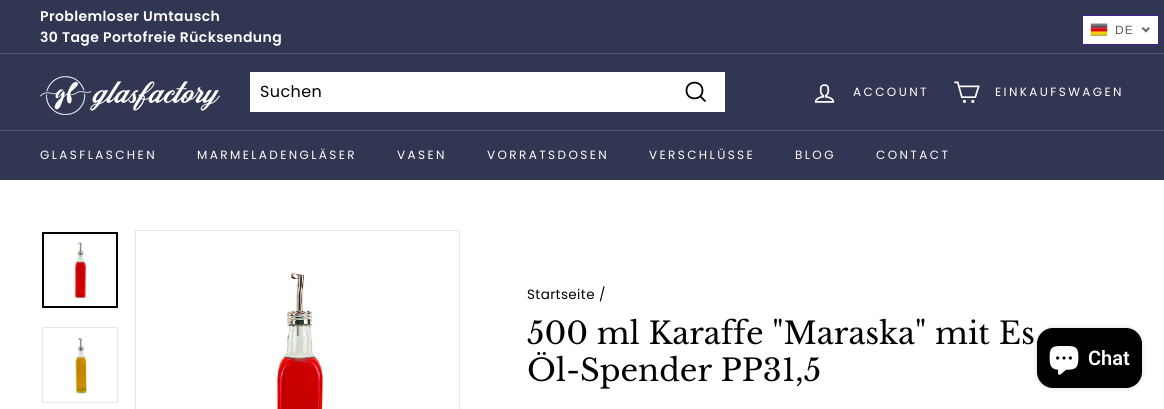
#include <cairo/cairo.h>
#include <math.h>
#include <stddef.h>

static cairo_t *cr;

static void use_color(int r, int g, int b) {
  cairo_set_source_rgb(cr, r / 255.0, g / 255.0, b / 255.0);
}

static void text(double x, double y, const char *s, const char *family, double size, int italic, int bold, int r, int g, int b) {
  cairo_select_font_face(cr, family, italic ? CAIRO_FONT_SLANT_ITALIC : CAIRO_FONT_SLANT_NORMAL,
    bold ? CAIRO_FONT_WEIGHT_BOLD : CAIRO_FONT_WEIGHT_NORMAL);
  cairo_set_font_size(cr, size);
  use_color(r, g, b);
  cairo_move_to(cr, x, y);
  cairo_show_text(cr, s);
}

static void spaced_text(double x, double y, const char *s, double letter, double word) {
  cairo_move_to(cr, x, y);
  while (*s) {
    char ch[5] = {0};
    int n = 0;
    do ch[n++] = *s++; while ((*s & 0xC0) == 0x80);
    cairo_show_text(cr, ch);
    cairo_rel_move_to(cr, letter + word * (*ch == ' '), 0);
  }
}

static void box(double x, double y, double w, double h, int r, int g, int b) {
  use_color(r, g, b);
  cairo_rectangle(cr, x, y, w, h);
  cairo_fill(cr);
}

static void round_rect(double x, double y, double w, double h, double r) {
  cairo_new_sub_path(cr);
  cairo_arc(cr, x + w - r, y + h - r, r, 0, M_PI / 2);
  cairo_arc(cr, x + r, y + h - r, r, M_PI / 2, M_PI);
  cairo_arc(cr, x + r, y + r, r, M_PI, 1.5 * M_PI);
  cairo_arc(cr, x + w - r, y + r, r, 1.5 * M_PI, 2 * M_PI);
  cairo_close_path(cr);
}

static void shadow(double x, double y, double w, double h, double r, double blur, double alpha) {
  cairo_push_group_with_content(cr, CAIRO_CONTENT_ALPHA);
  cairo_set_operator(cr, CAIRO_OPERATOR_SOURCE);
  for (int i = 15; i >= -15 && fmin(w, h) + blur * i / 3 > 0; i -= 2) {
    double e = blur * i / 6;
    cairo_set_source_rgba(cr, 0, 0, 0, alpha * erfc((i - 1) / 8.5) / 2);
    round_rect(x - e, y - e, w + 2 * e, h + 2 * e, fmax(0, fmin(r + e + blur * .6, fmin(w, h) / 2 + e)));
    cairo_fill(cr);
  }
  cairo_pattern_t *soft = cairo_pop_group(cr);
  cairo_mask(cr, soft);
  cairo_pattern_destroy(soft);
}

static void picture(const char *path, double x, double y, double w, double h) {
  cairo_surface_t *image = cairo_image_surface_create_from_png(path);
  cairo_save(cr);
  cairo_set_source_surface(cr, image, x, y);
  cairo_rectangle(cr, x, y, w, h);
  cairo_fill(cr);
  cairo_restore(cr);
  cairo_surface_destroy(image);
}

static void draw(void) {
  use_color(255, 255, 255);
  cairo_paint(cr);
  box(0, 0, 1164, 53, 49, 54, 82);
  box(0, 53, 1164, 1, 80, 84, 108);
  box(0, 54, 1164, 76, 49, 54, 82);
  picture("img_01.png", 40, 76, 180, 39);
  box(250, 72, 475, 40, 255, 255, 255);
  cairo_new_path(cr);
  cairo_move_to(cr, 702.5, 90.5);
  cairo_curve_to(cr, 702.5, 101, 686.5, 101, 686.5, 90.5);
  cairo_curve_to(cr, 686.5, 80, 702.5, 80, 702.5, 90.5);
  cairo_close_path(cr);
  cairo_move_to(cr, 705.5, 101.5);
  cairo_line_to(cr, 700.5, 96.5);
  use_color(0, 0, 0);
  cairo_set_line_width(cr, 1.8);
  cairo_stroke(cr);
  picture("img_02.png", 814, 84, 21, 19);
  picture("img_03.png", 954, 81, 26, 22);
  box(0, 130, 1164, 1, 80, 84, 108);
  box(0, 131, 1164, 49, 49, 54, 82);
  picture("img_04.png", 73, 242, 15, 60);
  cairo_rectangle(cr, 43, 233, 74, 74);
  use_color(0, 0, 0);
  cairo_set_line_width(cr, 2);
  cairo_stroke(cr);
  cairo_rectangle(cr, 42.5, 327.5, 75, 75);
  use_color(232, 232, 225);
  cairo_set_line_width(cr, 1);
  cairo_stroke(cr);
  picture("img_05.png", 74, 337, 14, 59);
  cairo_rectangle(cr, 135.5, 230.5, 324, 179);
  cairo_stroke(cr);
  picture("img_06.png", 276, 270, 47, 139);
  use_color(255, 255, 255);
  cairo_rectangle(cr, 1082.5, 15.5, 76, 29);
  cairo_fill_preserve(cr);
  use_color(67, 34, 145);
  cairo_stroke(cr);
  picture("img_07.png", 1090, 23, 18, 13);
  use_color(108, 108, 108);
  cairo_new_path(cr);
  cairo_move_to(cr, 1148.5, 27);
  cairo_line_to(cr, 1150, 28.5);
  cairo_line_to(cr, 1146, 32.5);
  cairo_line_to(cr, 1144.5, 31);
  cairo_close_path(cr);
  cairo_fill(cr);
  cairo_new_path(cr);
  cairo_move_to(cr, 1143, 27);
  cairo_line_to(cr, 1147.5, 31);
  cairo_line_to(cr, 1146, 32.5);
  cairo_line_to(cr, 1141.5, 28.5);
  cairo_close_path(cr);
  cairo_fill(cr);
  use_color(0, 0, 0);
  shadow(1037, 328, 105, 60, 16, 2.5, 0.15);
  use_color(0, 0, 0);
  round_rect(1037, 328, 105, 60, 16);
  cairo_fill(cr);
  picture("img_08.png", 1049, 346, 30, 29);
  cairo_select_font_face(cr, "Poppins SemiBold", CAIRO_FONT_SLANT_NORMAL, CAIRO_FONT_WEIGHT_NORMAL);
  cairo_set_font_size(cr, 14);
  use_color(255, 255, 255);
  spaced_text(40, 21, "Problemloser Umtausch", 0.4, 0);
  spaced_text(40, 42, "30 Tage Portofreie Rücksendung", 0.4, 0);
  cairo_select_font_face(cr, "Poppins", CAIRO_FONT_SLANT_NORMAL, CAIRO_FONT_WEIGHT_NORMAL);
  cairo_set_font_size(cr, 16);
  use_color(0, 0, 0);
  spaced_text(260, 97, "Suchen", 0.4, 0);
  cairo_set_font_size(cr, 12);
  use_color(255, 255, 255);
  spaced_text(853, 96, "ACCOUNT", 2.4, 0);
  spaced_text(995, 96, "EINKAUFSWAGEN", 2.4, 0);
  spaced_text(40, 159, "GLASFLASCHEN", 2.4, 0);
  spaced_text(197, 159, "MARMELADENGLÄSER", 2.4, 0);
  spaced_text(397, 159, "VASEN", 2.4, 0);
  spaced_text(487, 159, "VORRATSDOSEN", 2.4, 0);
  spaced_text(649, 159, "VERSCHLÜSSE", 2.4, 0);
  spaced_text(795, 159, "BLOG", 2.4, 0);
  spaced_text(876, 159, "CONTACT", 2.4, 0);
  cairo_set_font_size(cr, 13.5);
  use_color(0, 0, 0);
  spaced_text(527, 299, "Startseite /", 0.4, 0);
  text(527, 344, "500 ml Karaffe \"Maraska\" mit Es", "Libre Baskerville", 30.6, 0, 0, 0, 0, 0);
  text(527, 381, "Öl-Spender PP31,5", "Libre Baskerville", 30.6, 0, 0, 0, 0, 0);
  cairo_select_font_face(cr, "Liberation Sans", CAIRO_FONT_SLANT_NORMAL, CAIRO_FONT_WEIGHT_NORMAL);
  cairo_set_font_size(cr, 12);
  use_color(92, 92, 92);
  spaced_text(1115, 34, "DE", 1, 0);
  text(1088, 365, "Chat", "Roboto SemiBold", 20, 0, 0, 255, 255, 255);
}

int main(void) {
  cairo_surface_t *surface = cairo_image_surface_create(CAIRO_FORMAT_RGB24, 1164, 409);
  cr = cairo_create(surface);
  cairo_font_options_t *options = cairo_font_options_create();
  cairo_font_options_set_hint_metrics(options, CAIRO_HINT_METRICS_OFF);
  cairo_font_options_set_hint_style(options, CAIRO_HINT_STYLE_NONE);
  cairo_set_font_options(cr, options);
  cairo_set_miter_limit(cr, 4);
  draw();
  cairo_surface_write_to_png(surface, "out.png");
  cairo_font_options_destroy(options);
  cairo_destroy(cr);
  cairo_surface_destroy(surface);
  return 0;
}
